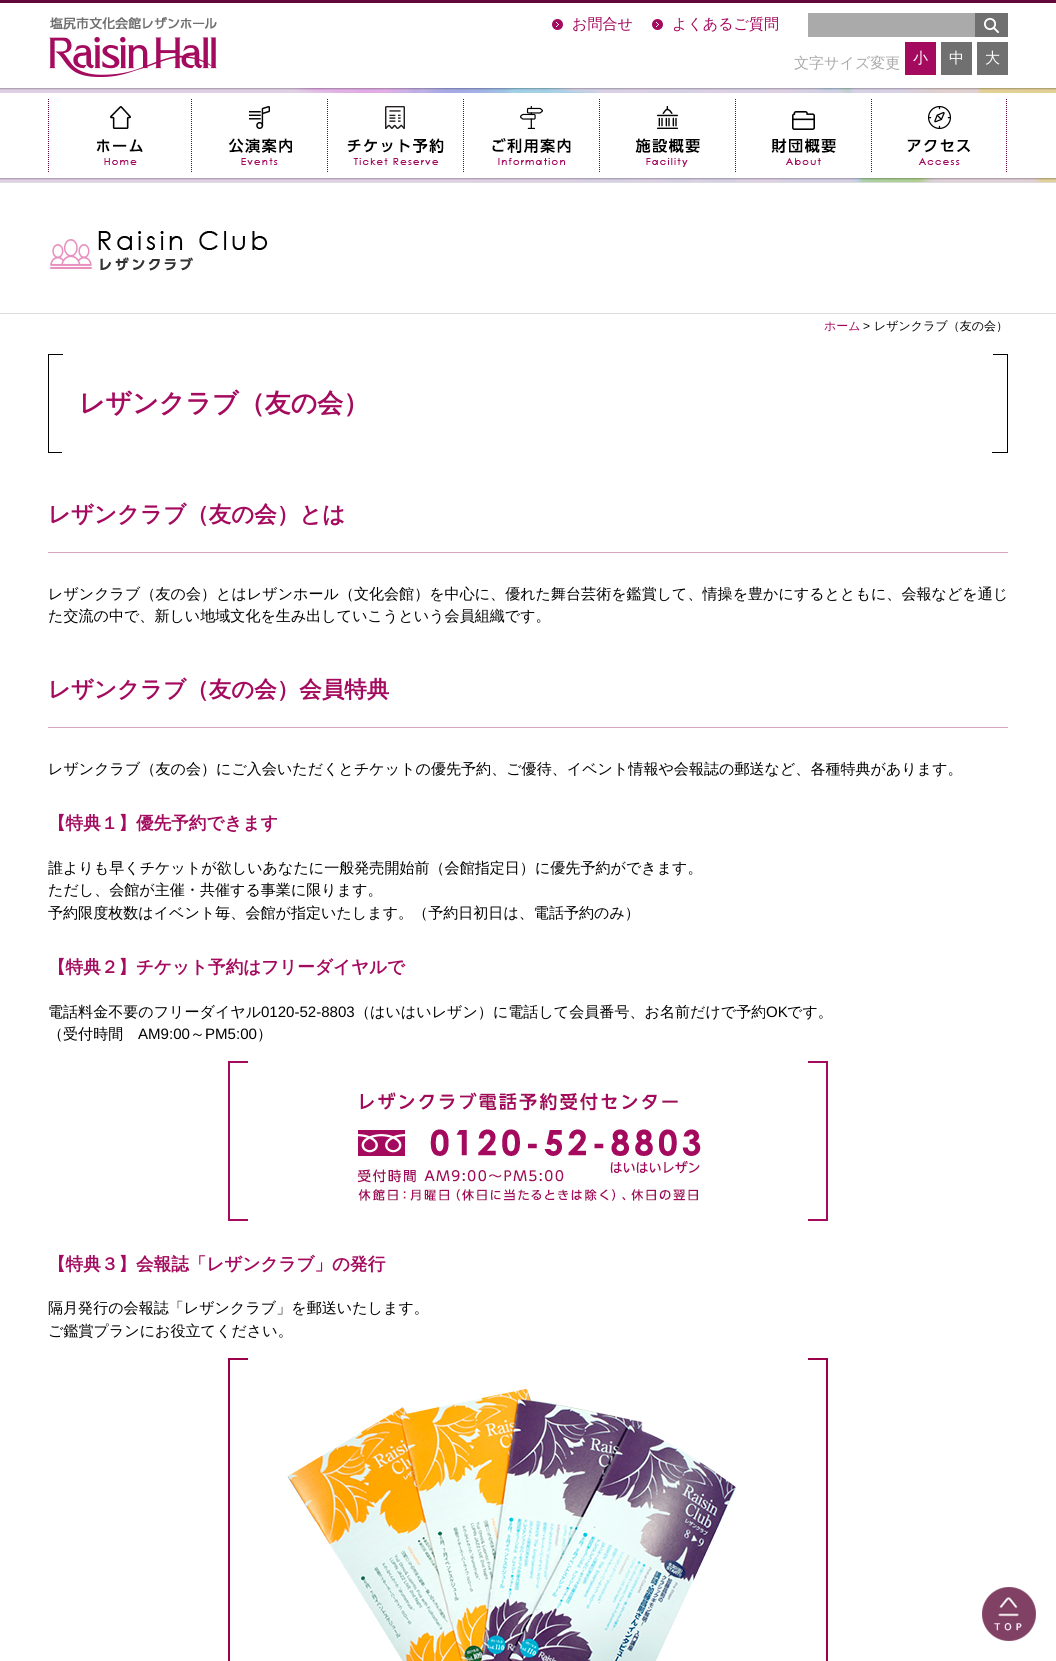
#include <cairo/cairo.h>
#include <math.h>
#include <stddef.h>

static cairo_t *cr;

static void use_color(int r, int g, int b) {
  cairo_set_source_rgb(cr, r / 255.0, g / 255.0, b / 255.0);
}

static void text(double x, double y, const char *s, const char *family, double size, int italic, int bold, int r, int g, int b) {
  cairo_select_font_face(cr, family, italic ? CAIRO_FONT_SLANT_ITALIC : CAIRO_FONT_SLANT_NORMAL,
    bold ? CAIRO_FONT_WEIGHT_BOLD : CAIRO_FONT_WEIGHT_NORMAL);
  cairo_set_font_size(cr, size);
  use_color(r, g, b);
  cairo_move_to(cr, x, y);
  cairo_show_text(cr, s);
}

static void box(double x, double y, double w, double h, int r, int g, int b) {
  use_color(r, g, b);
  cairo_rectangle(cr, x, y, w, h);
  cairo_fill(cr);
}

static void picture(const char *path, double x, double y, double w, double h) {
  cairo_surface_t *image = cairo_image_surface_create_from_png(path);
  cairo_save(cr);
  cairo_set_source_surface(cr, image, x, y);
  cairo_rectangle(cr, x, y, w, h);
  cairo_fill(cr);
  cairo_restore(cr);
  cairo_surface_destroy(image);
}

static void draw(void) {
  use_color(255, 255, 255);
  cairo_paint(cr);
  box(0, 0, 1056, 3, 98, 7, 57);
  picture("img_01.png", 49, 17, 168, 60);
  picture("img_02.png", 552, 19, 11, 11);
  picture("img_02.png", 652, 19, 11, 11);
  box(808, 13, 167, 24, 170, 170, 170);
  picture("img_03.png", 975, 13, 33, 24);
  box(905, 42, 31, 33, 164, 10, 94);
  box(941, 42, 31, 33, 112, 112, 112);
  box(977, 42, 31, 33, 112, 112, 112);
  picture("img_04.png", 0, 88, 1056, 95);
  picture("img_05.png", 48, 99, 95, 73);
  picture("img_06.png", 191, 99, 101, 73);
  picture("img_07.png", 327, 99, 117, 73);
  picture("img_08.png", 463, 99, 108, 73);
  picture("img_09.png", 599, 99, 101, 73);
  picture("img_10.png", 735, 99, 101, 73);
  picture("img_11.png", 871, 99, 136, 73);
  box(0, 313, 1056, 1, 220, 220, 220);
  picture("img_12.png", 50, 231, 218, 40);
  picture("img_13.png", 49, 354, 958, 1);
  picture("img_14.png", 49, 452, 958, 1);
  box(1007, 354, 1, 99, 0, 0, 0);
  box(48, 354, 1, 99, 0, 0, 0);
  box(48, 552, 960, 1, 214, 166, 192);
  box(48, 727, 960, 1, 214, 166, 192);
  picture("img_15.png", 228, 1061, 600, 160);
  picture("img_16.png", 228, 1358, 600, 303);
  picture("img_17.png", 982, 1587, 54, 54);
  text(572, 29, "お問合せ", "WenQuanYi Zen Hei Medium", 15.05, 0, 0, 164, 10, 94);
  text(672, 29, "よくあるご質問", "WenQuanYi Zen Hei Medium", 15.05, 0, 0, 164, 10, 94);
  text(794, 68, "文字サイズ変更", "WenQuanYi Zen Hei Medium", 15.05, 0, 0, 170, 170, 170);
  text(913, 63, "小", "WenQuanYi Zen Hei Medium", 15.05, 0, 0, 255, 255, 255);
  text(949, 63, "中", "WenQuanYi Zen Hei Medium", 15.05, 0, 0, 255, 255, 255);
  text(985, 63, "大", "WenQuanYi Zen Hei Medium", 15.05, 0, 0, 255, 255, 255);
  text(824, 330, "ホーム", "WenQuanYi Zen Hei Medium", 12, 0, 0, 164, 10, 94);
  text(863, 330, ">", "Liberation Sans", 12, 0, 0, 0, 0, 0);
  text(874, 330, "レザンクラブ（友の会）", "WenQuanYi Zen Hei Medium", 12, 0, 0, 0, 0, 0);
  text(79, 412, "レザンクラブ（友の会）", "WenQuanYi Zen Hei", 26, 0, 1, 164, 10, 94);
  text(48, 522, "レザンクラブ（友の会）とは", "WenQuanYi Zen Hei", 22.5, 0, 1, 164, 10, 94);
  text(48, 599, "レザンクラブ（友の会）とはレザンホール（文化会館）を中心に、優れた舞台芸術を鑑賞して、情操を豊かにするとともに、会報などを通じ", "WenQuanYi Zen Hei Medium", 15.05, 0, 0, 0, 0, 0);
  text(48, 621, "た交流の中で、新しい地域文化を生み出していこうという会員組織です。", "WenQuanYi Zen Hei Medium", 15.05, 0, 0, 0, 0, 0);
  text(48, 697, "レザンクラブ（友の会）会員特典", "WenQuanYi Zen Hei", 22.5, 0, 1, 164, 10, 94);
  text(48, 774, "レザンクラブ（友の会）にご入会いただくとチケットの優先予約、ご優待、イベント情報や会報誌の郵送など、各種特典があります。", "WenQuanYi Zen Hei Medium", 15.05, 0, 0, 0, 0, 0);
  text(48, 829, "【特典１】優先予約できます", "WenQuanYi Zen Hei", 17.6, 0, 1, 164, 10, 94);
  text(48, 873, "誰よりも早くチケットが欲しいあなたに一般発売開始前（会館指定日）に優先予約ができます。", "WenQuanYi Zen Hei Medium", 15.05, 0, 0, 0, 0, 0);
  text(48, 895, "ただし、会館が主催・共催する事業に限ります。", "WenQuanYi Zen Hei Medium", 15.05, 0, 0, 0, 0, 0);
  text(48, 918, "予約限度枚数はイベント毎、会館が指定いたします。（予約日初日は、電話予約のみ）", "WenQuanYi Zen Hei Medium", 15.05, 0, 0, 0, 0, 0);
  text(48, 973, "【特典２】チケット予約はフリーダイヤルで", "WenQuanYi Zen Hei", 17.6, 0, 1, 164, 10, 94);
  text(48, 1017, "電話料金不要のフリーダイヤル", "WenQuanYi Zen Hei Medium", 15.05, 0, 0, 0, 0, 0);
  text(261, 1017, "0120-52-8803", "Liberation Sans", 15.05, 0, 0, 0, 0, 0);
  text(355, 1017, "（はいはいレザン）に電話して会員番号、お名前だけで予約", "WenQuanYi Zen Hei Medium", 15.05, 0, 0, 0, 0, 0);
  text(766, 1017, "OK", "Liberation Sans", 15.05, 0, 0, 0, 0, 0);
  text(787, 1017, "です。", "WenQuanYi Zen Hei Medium", 15.05, 0, 0, 0, 0, 0);
  text(48, 1039, "（受付時間", "WenQuanYi Zen Hei Medium", 15.05, 0, 0, 0, 0, 0);
  text(138, 1039, "AM9:00", "Liberation Sans", 15.05, 0, 0, 0, 0, 0);
  text(190, 1039, "～", "WenQuanYi Zen Hei Medium", 15.05, 0, 0, 0, 0, 0);
  text(205, 1039, "PM5:00", "Liberation Sans", 15.05, 0, 0, 0, 0, 0);
  text(257, 1039, "）", "WenQuanYi Zen Hei Medium", 15.05, 0, 0, 0, 0, 0);
  text(48, 1270, "【特典３】会報誌「レザンクラブ」の発行", "WenQuanYi Zen Hei", 17.6, 0, 1, 164, 10, 94);
  text(48, 1313, "隔月発行の会報誌「レザンクラブ」を郵送いたします。", "WenQuanYi Zen Hei Medium", 15.05, 0, 0, 0, 0, 0);
  text(48, 1336, "ご鑑賞プランにお役立てください。", "WenQuanYi Zen Hei Medium", 15.05, 0, 0, 0, 0, 0);
}

int main(void) {
  cairo_surface_t *surface = cairo_image_surface_create(CAIRO_FORMAT_RGB24, 1056, 1661);
  cr = cairo_create(surface);
  cairo_font_options_t *options = cairo_font_options_create();
  cairo_font_options_set_hint_metrics(options, CAIRO_HINT_METRICS_OFF);
  cairo_font_options_set_hint_style(options, CAIRO_HINT_STYLE_NONE);
  cairo_set_font_options(cr, options);
  cairo_set_miter_limit(cr, 4);
  draw();
  cairo_surface_write_to_png(surface, "out.png");
  cairo_font_options_destroy(options);
  cairo_destroy(cr);
  cairo_surface_destroy(surface);
  return 0;
}
